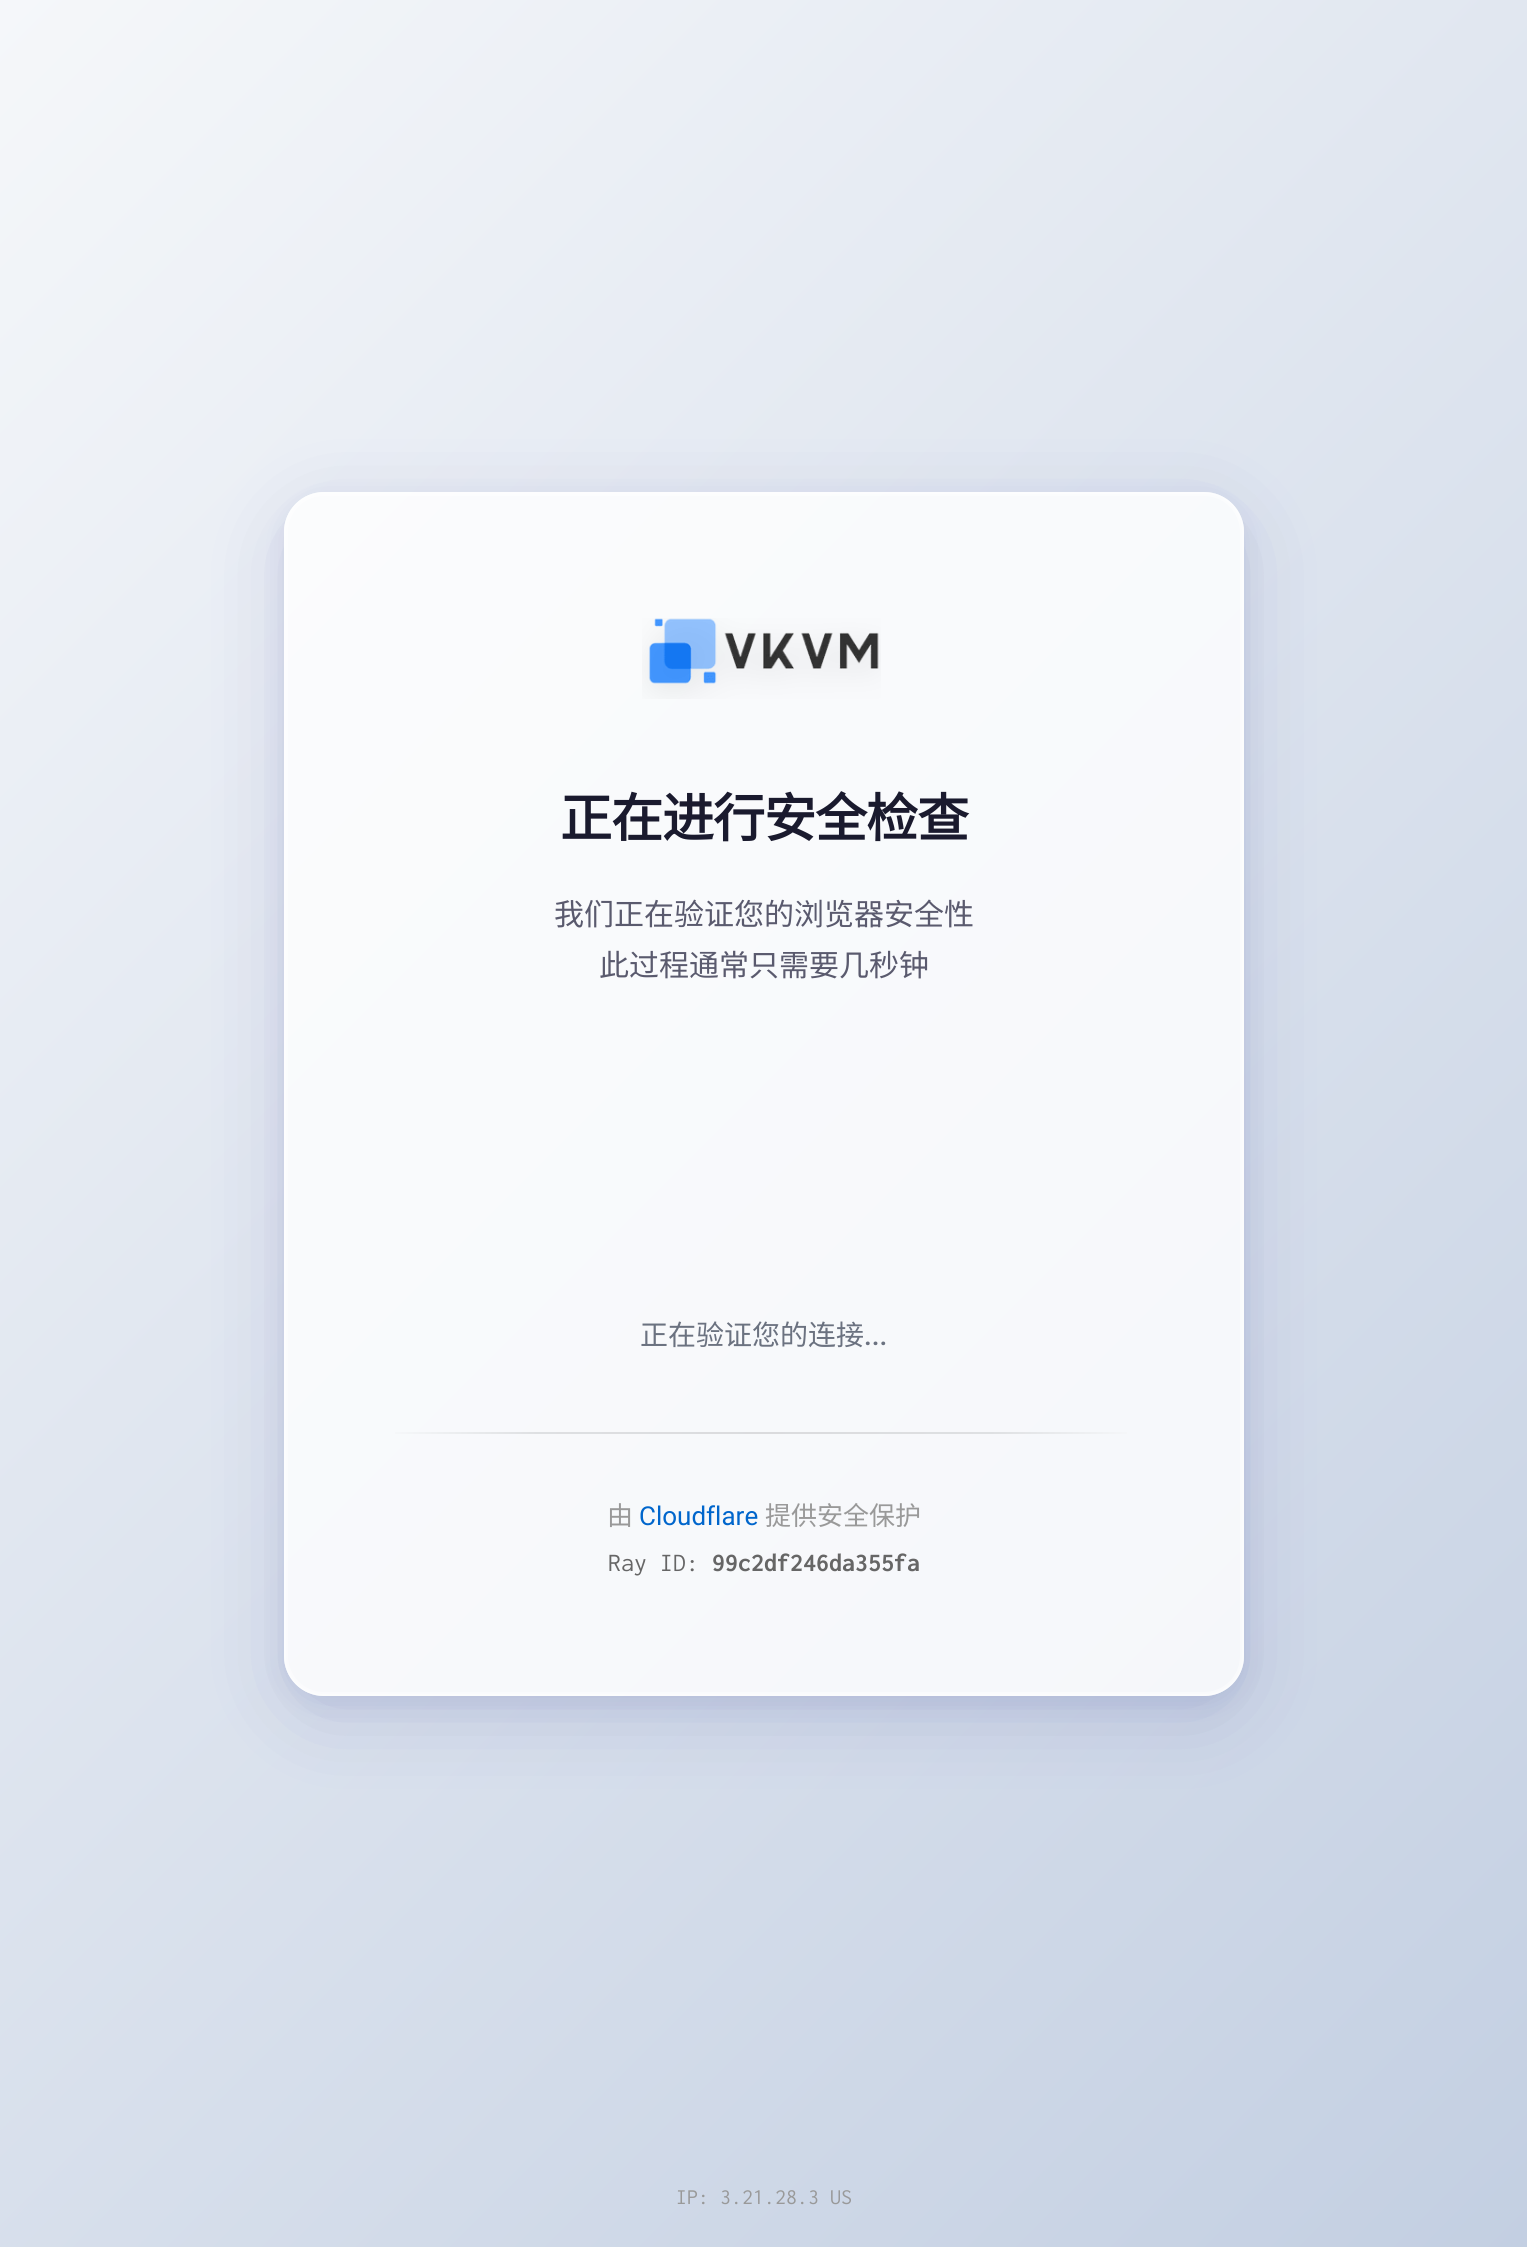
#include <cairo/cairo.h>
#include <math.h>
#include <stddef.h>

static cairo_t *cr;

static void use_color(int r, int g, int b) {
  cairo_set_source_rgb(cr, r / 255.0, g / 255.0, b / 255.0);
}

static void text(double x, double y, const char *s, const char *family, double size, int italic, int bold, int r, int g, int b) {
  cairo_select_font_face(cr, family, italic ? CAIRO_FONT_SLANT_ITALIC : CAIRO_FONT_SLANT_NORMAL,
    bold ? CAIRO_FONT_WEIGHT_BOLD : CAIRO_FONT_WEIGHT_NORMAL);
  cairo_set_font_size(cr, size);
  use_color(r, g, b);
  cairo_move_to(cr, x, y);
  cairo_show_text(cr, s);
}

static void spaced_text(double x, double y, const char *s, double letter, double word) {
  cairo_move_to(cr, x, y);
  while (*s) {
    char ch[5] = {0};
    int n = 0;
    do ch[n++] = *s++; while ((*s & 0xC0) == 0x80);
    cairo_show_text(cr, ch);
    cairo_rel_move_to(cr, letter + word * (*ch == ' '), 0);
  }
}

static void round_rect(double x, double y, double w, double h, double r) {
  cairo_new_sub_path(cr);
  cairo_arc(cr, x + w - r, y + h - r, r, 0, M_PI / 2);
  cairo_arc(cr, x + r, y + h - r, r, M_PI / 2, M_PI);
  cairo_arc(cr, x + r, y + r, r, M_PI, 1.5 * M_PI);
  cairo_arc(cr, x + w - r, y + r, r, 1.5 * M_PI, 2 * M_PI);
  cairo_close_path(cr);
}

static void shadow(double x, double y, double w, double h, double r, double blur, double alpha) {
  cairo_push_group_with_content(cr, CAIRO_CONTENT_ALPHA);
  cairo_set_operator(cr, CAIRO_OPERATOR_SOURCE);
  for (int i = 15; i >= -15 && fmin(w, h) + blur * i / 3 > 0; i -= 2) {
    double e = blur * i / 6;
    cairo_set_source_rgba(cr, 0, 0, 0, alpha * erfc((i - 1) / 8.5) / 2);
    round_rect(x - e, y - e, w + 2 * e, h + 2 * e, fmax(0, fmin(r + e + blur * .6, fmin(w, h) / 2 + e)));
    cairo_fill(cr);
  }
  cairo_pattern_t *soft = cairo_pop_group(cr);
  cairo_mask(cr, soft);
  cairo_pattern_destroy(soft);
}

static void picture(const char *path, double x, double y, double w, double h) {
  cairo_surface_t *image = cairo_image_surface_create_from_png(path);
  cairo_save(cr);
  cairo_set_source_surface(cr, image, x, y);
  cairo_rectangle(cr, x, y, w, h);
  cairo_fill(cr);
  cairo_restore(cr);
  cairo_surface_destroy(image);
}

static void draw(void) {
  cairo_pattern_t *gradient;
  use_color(255, 255, 255);
  cairo_paint(cr);
  gradient = cairo_pattern_create_linear(-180, 180, 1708, 2068);
  cairo_pattern_add_color_stop_rgba(gradient, 0, 0.961, 0.969, 0.98, 1);
  cairo_pattern_add_color_stop_rgba(gradient, 1, 0.765, 0.812, 0.886, 1);
  cairo_set_source(cr, gradient);
  cairo_pattern_destroy(gradient);
  cairo_rectangle(cr, 0, 0, 1527, 2247);
  cairo_fill(cr);
  cairo_save(cr);
  cairo_set_fill_rule(cr, CAIRO_FILL_RULE_EVEN_ODD);
  cairo_new_path(cr);
  cairo_move_to(cr, 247, 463);
  cairo_line_to(cr, 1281, 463);
  cairo_line_to(cr, 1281, 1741);
  cairo_line_to(cr, 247, 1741);
  cairo_close_path(cr);
  cairo_move_to(cr, 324, 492);
  cairo_line_to(cr, 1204, 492);
  cairo_curve_to(cr, 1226, 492, 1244, 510, 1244, 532);
  cairo_line_to(cr, 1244, 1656);
  cairo_curve_to(cr, 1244, 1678, 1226, 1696, 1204, 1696);
  cairo_line_to(cr, 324, 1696);
  cairo_curve_to(cr, 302, 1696, 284, 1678, 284, 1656);
  cairo_line_to(cr, 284, 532);
  cairo_curve_to(cr, 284, 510, 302, 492, 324, 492);
  cairo_close_path(cr);
  cairo_clip(cr);
  use_color(31, 38, 135);
  shadow(284, 500, 960, 1204, 40, 12, 0.08);
  cairo_restore(cr);
  cairo_save(cr);
  cairo_set_fill_rule(cr, CAIRO_FILL_RULE_EVEN_ODD);
  cairo_new_path(cr);
  cairo_move_to(cr, 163, 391);
  cairo_line_to(cr, 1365, 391);
  cairo_line_to(cr, 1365, 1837);
  cairo_line_to(cr, 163, 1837);
  cairo_close_path(cr);
  cairo_move_to(cr, 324, 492);
  cairo_line_to(cr, 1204, 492);
  cairo_curve_to(cr, 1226, 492, 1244, 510, 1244, 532);
  cairo_line_to(cr, 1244, 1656);
  cairo_curve_to(cr, 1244, 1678, 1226, 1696, 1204, 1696);
  cairo_line_to(cr, 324, 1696);
  cairo_curve_to(cr, 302, 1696, 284, 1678, 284, 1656);
  cairo_line_to(cr, 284, 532);
  cairo_curve_to(cr, 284, 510, 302, 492, 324, 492);
  cairo_close_path(cr);
  cairo_clip(cr);
  use_color(31, 38, 135);
  shadow(284, 512, 960, 1204, 40, 40, 0.15);
  cairo_restore(cr);
  cairo_set_source_rgba(cr, 1, 1, 1, 0.8);
  round_rect(284, 492, 960, 1204, 40);
  cairo_fill(cr);
  round_rect(287, 495, 954, 1198, 37);
  cairo_set_source_rgba(cr, 1, 1, 1, 0.4);
  cairo_stroke(cr);
  round_rect(285, 493, 958, 1202, 39);
  cairo_set_source_rgba(cr, 1, 1, 1, 0.6);
  cairo_stroke(cr);
  picture("img_01.png", 642, 618, 239, 81);
  gradient = cairo_pattern_create_linear(386, 1433, 1142, 1433);
  cairo_pattern_add_color_stop_rgba(gradient, 0, 0.969, 0.976, 0.984, 1);
  cairo_pattern_add_color_stop_rgba(gradient, 0.2, 0.871, 0.878, 0.886, 1);
  cairo_pattern_add_color_stop_rgba(gradient, 0.5, 0.855, 0.859, 0.867, 1);
  cairo_pattern_add_color_stop_rgba(gradient, 0.8, 0.871, 0.878, 0.886, 1);
  cairo_pattern_add_color_stop_rgba(gradient, 1, 0.969, 0.976, 0.984, 1);
  cairo_set_source(cr, gradient);
  cairo_pattern_destroy(gradient);
  cairo_rectangle(cr, 395, 1432, 732, 2);
  cairo_fill(cr);
  cairo_select_font_face(cr, "Noto Sans CJK SC", CAIRO_FONT_SLANT_NORMAL, CAIRO_FONT_WEIGHT_BOLD);
  cairo_set_font_size(cr, 52);
  use_color(26, 26, 46);
  spaced_text(560, 837, "正在进行安全检查", -1, 0);
  text(554, 925, "我们正在验证您的浏览器安全性", "Noto Sans CJK SC", 30, 0, 0, 90, 90, 110);
  text(599, 976, "此过程通常只需要几秒钟", "Noto Sans CJK SC", 30, 0, 0, 90, 90, 110);
  text(640, 1345, "正在验证您的连接", "Noto Sans CJK SC", 28, 0, 0, 107, 114, 128);
  text(864, 1345, "...", "Roboto Medium", 28, 0, 0, 107, 114, 128);
  text(607, 1525, "由", "Noto Sans CJK SC", 26, 0, 0, 153, 153, 153);
  text(639, 1525, "Cloudflare", "Roboto", 26, 0, 0, 0, 102, 204);
  text(765, 1525, "提供安全保护", "Noto Sans CJK SC", 26, 0, 0, 153, 153, 153);
  text(608, 1571, "Ray ID:", "Inconsolata", 26, 0, 0, 102, 102, 102);
  text(712, 1571, "99c2df246da355fa", "Inconsolata", 26, 0, 1, 102, 102, 102);
  text(676, 2204, "IP: 3.21.28.3 US", "Inconsolata", 22, 0, 0, 153, 153, 153);
}

int main(void) {
  cairo_surface_t *surface = cairo_image_surface_create(CAIRO_FORMAT_RGB24, 1527, 2247);
  cr = cairo_create(surface);
  cairo_font_options_t *options = cairo_font_options_create();
  cairo_font_options_set_hint_metrics(options, CAIRO_HINT_METRICS_OFF);
  cairo_font_options_set_hint_style(options, CAIRO_HINT_STYLE_NONE);
  cairo_set_font_options(cr, options);
  cairo_set_miter_limit(cr, 4);
  draw();
  cairo_surface_write_to_png(surface, "out.png");
  cairo_font_options_destroy(options);
  cairo_destroy(cr);
  cairo_surface_destroy(surface);
  return 0;
}
